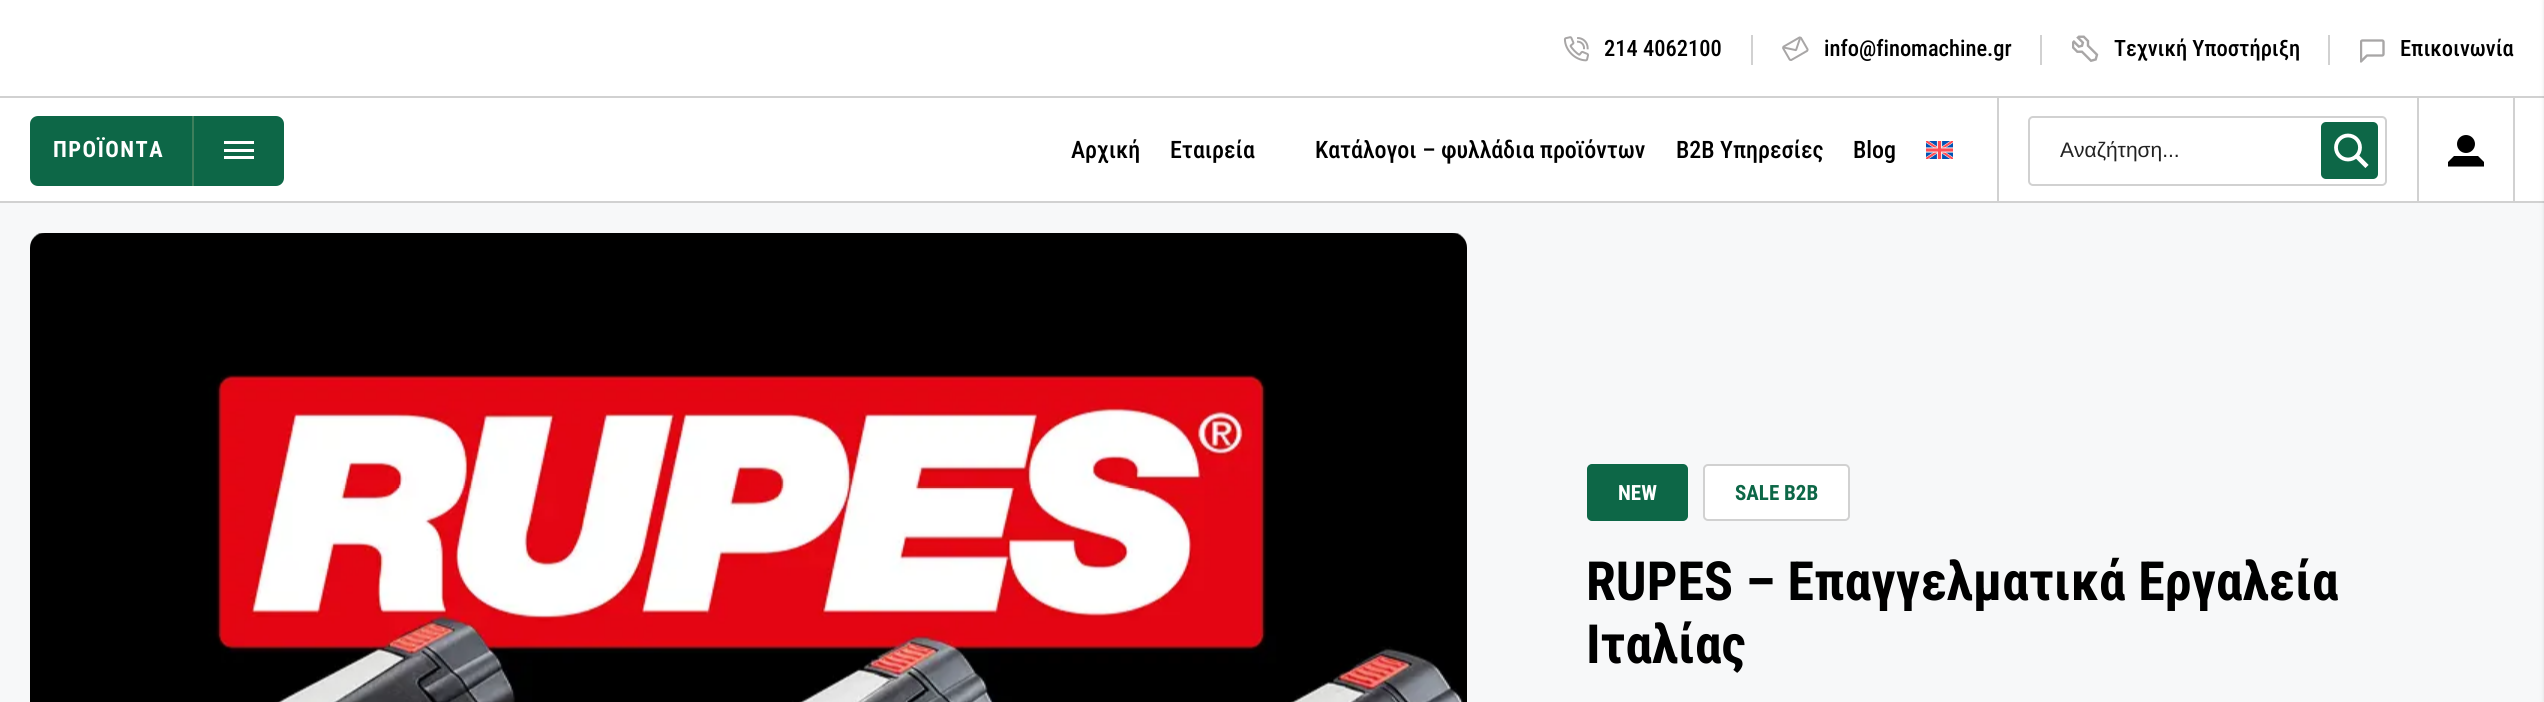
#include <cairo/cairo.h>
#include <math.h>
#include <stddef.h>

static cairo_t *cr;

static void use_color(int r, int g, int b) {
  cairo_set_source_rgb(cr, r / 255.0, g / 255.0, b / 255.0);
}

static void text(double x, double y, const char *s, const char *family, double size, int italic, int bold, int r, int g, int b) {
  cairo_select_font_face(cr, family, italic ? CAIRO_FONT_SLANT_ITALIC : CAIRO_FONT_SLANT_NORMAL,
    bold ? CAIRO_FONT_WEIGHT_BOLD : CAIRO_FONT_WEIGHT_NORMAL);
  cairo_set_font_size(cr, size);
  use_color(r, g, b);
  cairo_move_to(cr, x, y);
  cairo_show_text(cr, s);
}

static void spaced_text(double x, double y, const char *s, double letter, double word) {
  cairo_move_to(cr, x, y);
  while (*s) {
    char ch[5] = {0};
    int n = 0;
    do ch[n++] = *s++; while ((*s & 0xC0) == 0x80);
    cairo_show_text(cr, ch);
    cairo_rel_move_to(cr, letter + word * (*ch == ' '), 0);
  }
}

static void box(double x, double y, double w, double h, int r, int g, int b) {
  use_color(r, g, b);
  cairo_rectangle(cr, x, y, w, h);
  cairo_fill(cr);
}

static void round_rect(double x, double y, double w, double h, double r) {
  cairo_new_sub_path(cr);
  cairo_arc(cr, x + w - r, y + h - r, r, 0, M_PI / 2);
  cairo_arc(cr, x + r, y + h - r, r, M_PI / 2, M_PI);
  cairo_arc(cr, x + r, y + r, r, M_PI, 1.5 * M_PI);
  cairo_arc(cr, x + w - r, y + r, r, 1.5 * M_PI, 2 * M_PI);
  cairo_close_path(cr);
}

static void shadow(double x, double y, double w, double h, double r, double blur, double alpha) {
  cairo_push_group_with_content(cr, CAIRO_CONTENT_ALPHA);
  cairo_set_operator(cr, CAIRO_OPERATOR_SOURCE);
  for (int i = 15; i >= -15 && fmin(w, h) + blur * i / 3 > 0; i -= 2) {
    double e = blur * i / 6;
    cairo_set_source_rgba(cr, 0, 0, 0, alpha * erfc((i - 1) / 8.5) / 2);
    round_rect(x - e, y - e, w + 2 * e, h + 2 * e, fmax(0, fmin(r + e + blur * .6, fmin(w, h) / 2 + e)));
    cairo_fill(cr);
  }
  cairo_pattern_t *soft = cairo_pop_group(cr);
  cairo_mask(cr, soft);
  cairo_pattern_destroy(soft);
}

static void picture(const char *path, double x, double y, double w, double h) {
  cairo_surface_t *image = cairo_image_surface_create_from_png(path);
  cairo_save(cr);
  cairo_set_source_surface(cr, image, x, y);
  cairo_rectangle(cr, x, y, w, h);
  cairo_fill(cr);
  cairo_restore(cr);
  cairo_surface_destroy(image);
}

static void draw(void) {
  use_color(247, 248, 249);
  cairo_paint(cr);
  box(0, 0, 2544, 201, 255, 255, 255);
  picture("img_01.png", 1563, 36, 26, 26);
  box(1751, 35, 2, 30, 209, 209, 209);
  picture("img_02.png", 1782, 36, 27, 25);
  box(2040, 35, 2, 30, 209, 209, 209);
  picture("img_03.png", 2072, 35, 27, 27);
  box(2328, 35, 2, 30, 209, 209, 209);
  picture("img_04.png", 2360, 39, 25, 24);
  box(0, 96, 2544, 2, 209, 209, 209);
  use_color(13, 103, 71);
  round_rect(30, 116, 254, 70, 8);
  cairo_fill(cr);
  box(224, 141, 30, 3, 255, 255, 255);
  box(224, 149, 30, 3, 255, 255, 255);
  box(224, 156, 30, 3, 255, 255, 255);
  box(192, 116, 2, 70, 62, 127, 92);
  picture("img_05.png", 1926, 141, 27, 18);
  box(1997, 96, 2, 105, 209, 209, 209);
  round_rect(2029, 117, 357, 68, 4);
  cairo_stroke(cr);
  use_color(13, 103, 71);
  round_rect(2321, 122, 57, 57, 5);
  cairo_fill(cr);
  cairo_new_path(cr);
  cairo_move_to(cr, 2355.5, 155);
  cairo_line_to(cr, 2367, 166.5);
  use_color(255, 255, 255);
  cairo_set_line_width(cr, 4.5);
  cairo_stroke(cr);
  cairo_arc(cr, 2348, 147.5, 12, 0, 2 * M_PI);
  cairo_set_line_width(cr, 3.8);
  cairo_stroke(cr);
  box(2417, 96, 2, 105, 209, 209, 209);
  use_color(0, 0, 0);
  cairo_new_path(cr);
  cairo_move_to(cr, 2448, 162);
  cairo_line_to(cr, 2448, 166.5);
  cairo_line_to(cr, 2484, 166.5);
  cairo_line_to(cr, 2484, 162);
  cairo_line_to(cr, 2478, 156);
  cairo_line_to(cr, 2454, 156);
  cairo_close_path(cr);
  cairo_fill(cr);
  cairo_arc(cr, 2466, 144, 9, 0, 2 * M_PI);
  cairo_fill(cr);
  box(2513, 96, 2, 105, 209, 209, 209);
  box(0, 201, 2544, 2, 209, 209, 209);
  use_color(0, 0, 0);
  shadow(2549, 0, 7, 702, 0, 4, 0.5);
  picture("img_06.png", 30, 233, 1437, 469);
  use_color(13, 103, 71);
  round_rect(1588, 465, 99, 55, 4);
  cairo_fill_preserve(cr);
  cairo_set_line_width(cr, 2);
  cairo_stroke(cr);
  use_color(255, 255, 255);
  round_rect(1704, 465, 145, 55, 4);
  cairo_fill_preserve(cr);
  use_color(209, 209, 209);
  cairo_stroke(cr);
  text(1604, 56, "214 4062100", "Roboto Condensed Medium", 22.5, 0, 0, 0, 0, 0);
  text(1824, 56, "info@finomachine.gr", "Roboto Condensed Medium", 22.5, 0, 0, 0, 0, 0);
  text(2114, 56, "Τεχνική Υποστήριξη", "Roboto Condensed Medium", 22.5, 0, 0, 0, 0, 0);
  text(2400, 56, "Επικοινωνία", "Roboto Condensed Medium", 22.5, 0, 0, 0, 0, 0);
  cairo_select_font_face(cr, "Roboto Condensed", CAIRO_FONT_SLANT_NORMAL, CAIRO_FONT_WEIGHT_BOLD);
  use_color(255, 255, 255);
  spaced_text(53, 157, "ΠΡΟΪΟΝΤΑ", 1.5, 0);
  text(1071, 158, "Αρχική", "Roboto Condensed Medium", 24, 0, 0, 0, 0, 0);
  text(1170, 158, "Εταιρεία", "Roboto Condensed Medium", 24, 0, 0, 0, 0, 0);
  text(1315, 158, "Κατάλογοι – φυλλάδια προϊόντων", "Roboto Condensed Medium", 24, 0, 0, 0, 0, 0);
  text(1676, 158, "B2B Υπηρεσίες", "Roboto Condensed Medium", 24, 0, 0, 0, 0, 0);
  text(1853, 158, "Blog", "Roboto Condensed Medium", 24, 0, 0, 0, 0, 0);
  text(2060, 157, "Αναζήτηση...", "Liberation Sans", 21, 0, 0, 34, 34, 34);
  text(1618, 500, "NEW", "Roboto Condensed", 21, 0, 1, 255, 255, 255);
  text(1735, 500, "SALE B2B", "Roboto Condensed", 21, 0, 1, 13, 103, 71);
  text(1586, 600, "RUPES – Επαγγελματικά Εργαλεία", "Roboto Condensed", 54, 0, 1, 0, 0, 0);
  text(1586, 663, "Ιταλίας", "Roboto Condensed", 54, 0, 1, 0, 0, 0);
}

int main(void) {
  cairo_surface_t *surface = cairo_image_surface_create(CAIRO_FORMAT_RGB24, 2544, 702);
  cr = cairo_create(surface);
  cairo_font_options_t *options = cairo_font_options_create();
  cairo_font_options_set_hint_metrics(options, CAIRO_HINT_METRICS_OFF);
  cairo_font_options_set_hint_style(options, CAIRO_HINT_STYLE_NONE);
  cairo_set_font_options(cr, options);
  cairo_set_miter_limit(cr, 4);
  draw();
  cairo_surface_write_to_png(surface, "out.png");
  cairo_font_options_destroy(options);
  cairo_destroy(cr);
  cairo_surface_destroy(surface);
  return 0;
}
